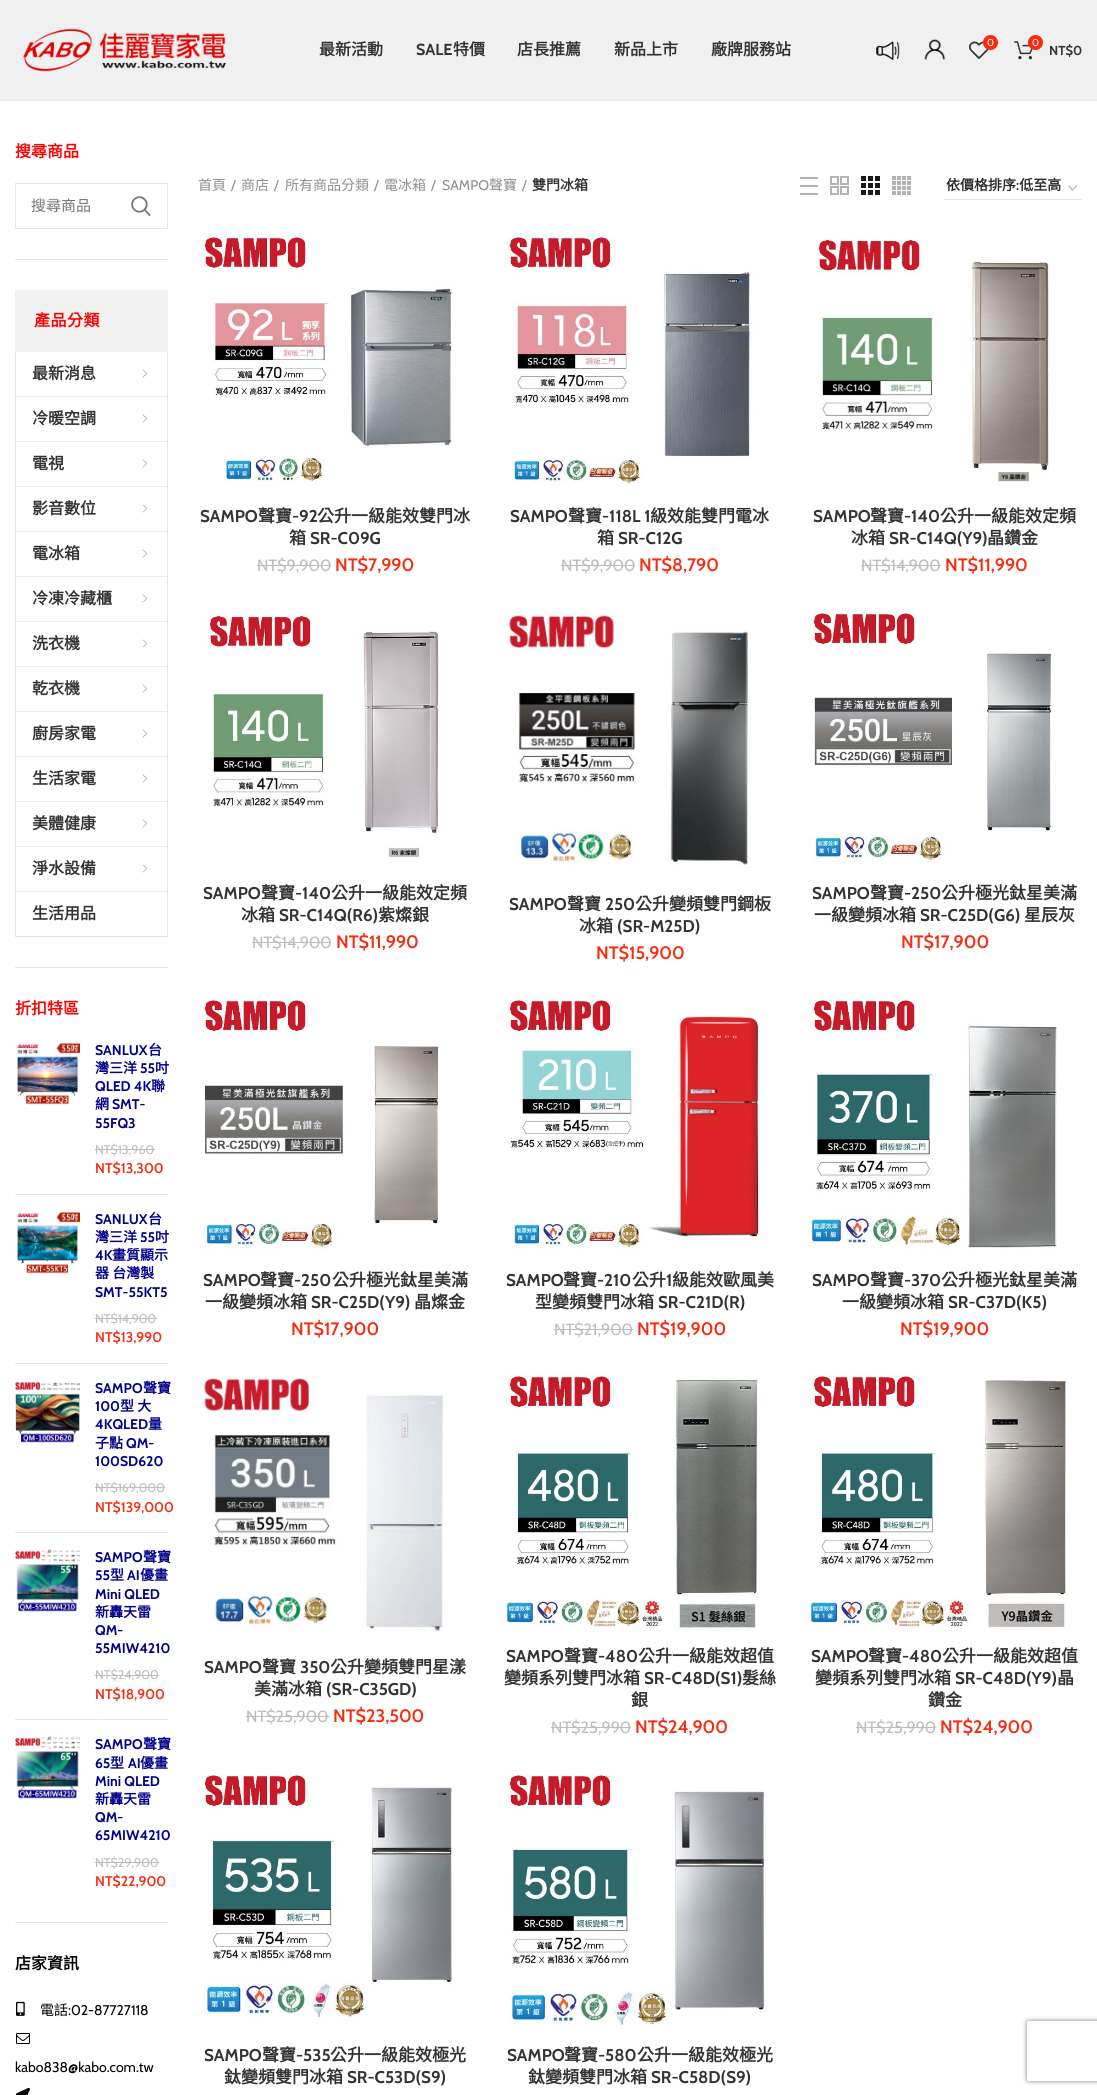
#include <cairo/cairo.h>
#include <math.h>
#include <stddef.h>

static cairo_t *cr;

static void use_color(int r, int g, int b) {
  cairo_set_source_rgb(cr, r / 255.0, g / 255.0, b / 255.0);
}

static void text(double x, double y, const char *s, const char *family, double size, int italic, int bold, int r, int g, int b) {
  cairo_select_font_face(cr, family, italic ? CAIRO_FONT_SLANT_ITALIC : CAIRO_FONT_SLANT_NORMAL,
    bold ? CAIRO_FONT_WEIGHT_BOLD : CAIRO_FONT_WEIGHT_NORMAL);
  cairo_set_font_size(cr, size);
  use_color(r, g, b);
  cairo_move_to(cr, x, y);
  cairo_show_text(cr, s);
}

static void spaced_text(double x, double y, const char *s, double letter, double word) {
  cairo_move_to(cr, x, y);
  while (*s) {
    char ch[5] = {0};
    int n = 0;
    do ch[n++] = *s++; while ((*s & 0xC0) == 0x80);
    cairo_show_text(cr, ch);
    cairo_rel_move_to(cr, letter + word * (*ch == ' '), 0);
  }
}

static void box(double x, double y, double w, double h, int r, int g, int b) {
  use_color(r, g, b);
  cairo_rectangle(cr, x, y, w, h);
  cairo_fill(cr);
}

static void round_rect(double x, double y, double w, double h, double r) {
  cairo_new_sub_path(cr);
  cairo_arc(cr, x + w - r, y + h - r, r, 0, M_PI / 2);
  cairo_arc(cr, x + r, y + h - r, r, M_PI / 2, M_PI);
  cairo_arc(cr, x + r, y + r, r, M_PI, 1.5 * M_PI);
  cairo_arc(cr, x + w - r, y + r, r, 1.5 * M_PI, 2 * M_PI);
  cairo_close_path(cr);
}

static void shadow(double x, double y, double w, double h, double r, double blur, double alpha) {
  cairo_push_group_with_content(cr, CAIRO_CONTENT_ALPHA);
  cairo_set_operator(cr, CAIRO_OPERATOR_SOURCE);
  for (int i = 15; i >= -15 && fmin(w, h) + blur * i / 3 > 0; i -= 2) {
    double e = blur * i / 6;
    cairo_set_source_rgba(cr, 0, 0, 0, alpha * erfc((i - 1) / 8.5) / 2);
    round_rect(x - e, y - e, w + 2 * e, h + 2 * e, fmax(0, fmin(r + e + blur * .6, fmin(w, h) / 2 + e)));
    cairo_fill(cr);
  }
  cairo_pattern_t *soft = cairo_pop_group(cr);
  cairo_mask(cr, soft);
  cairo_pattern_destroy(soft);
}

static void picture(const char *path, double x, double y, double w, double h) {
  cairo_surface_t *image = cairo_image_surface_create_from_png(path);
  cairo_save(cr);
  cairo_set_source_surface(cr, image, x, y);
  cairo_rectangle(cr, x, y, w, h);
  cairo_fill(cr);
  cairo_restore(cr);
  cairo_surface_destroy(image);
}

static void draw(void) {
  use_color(255, 255, 255);
  cairo_paint(cr);
  box(0, 0, 1097, 100, 240, 240, 240);
  box(0, 100, 1097, 1, 232, 232, 232);
  picture("img_01.png", 22, 28, 204, 44);
  picture("img_02.png", 876, 41, 24, 19);
  picture("img_03.png", 924, 39, 22, 21);
  picture("img_04.png", 969, 41, 20, 18);
  use_color(249, 42, 14);
  cairo_arc(cr, 990.5, 42.5, 7.5, 0, 2 * M_PI);
  cairo_fill(cr);
  picture("img_05.png", 1014, 41, 19, 19);
  cairo_arc(cr, 1035.5, 42.5, 7.5, 0, 2 * M_PI);
  cairo_fill(cr);
  box(15, 259, 153, 1, 230, 230, 230);
  cairo_rectangle(cr, 15.5, 183.5, 152, 45);
  cairo_set_line_width(cr, 1);
  cairo_stroke(cr);
  picture("img_06.png", 131, 196, 20, 21);
  box(15, 967, 153, 1, 230, 230, 230);
  box(15, 290, 153, 62, 241, 241, 241);
  use_color(230, 230, 230);
  cairo_new_path(cr);
  cairo_move_to(cr, 168, 352);
  cairo_line_to(cr, 168, 937);
  cairo_line_to(cr, 167, 936);
  cairo_line_to(cr, 167, 352);
  cairo_close_path(cr);
  cairo_fill(cr);
  cairo_set_source_rgba(cr, 0.506, 0.506, 0.506, 0.2);
  cairo_new_path(cr);
  cairo_move_to(cr, 168, 937);
  cairo_line_to(cr, 15, 937);
  cairo_line_to(cr, 16, 936);
  cairo_line_to(cr, 167, 936);
  cairo_close_path(cr);
  cairo_fill(cr);
  cairo_new_path(cr);
  cairo_move_to(cr, 15, 937);
  cairo_line_to(cr, 15, 352);
  cairo_line_to(cr, 16, 352);
  cairo_line_to(cr, 16, 936);
  cairo_close_path(cr);
  cairo_fill(cr);
  box(16, 396, 151, 1, 236, 236, 236);
  picture("img_07.png", 142, 369, 6, 9);
  box(16, 441, 151, 1, 236, 236, 236);
  picture("img_07.png", 142, 414, 6, 9);
  box(16, 486, 151, 1, 236, 236, 236);
  picture("img_07.png", 142, 459, 6, 9);
  box(16, 531, 151, 1, 236, 236, 236);
  picture("img_07.png", 142, 504, 6, 9);
  box(16, 576, 151, 1, 236, 236, 236);
  picture("img_07.png", 142, 549, 6, 9);
  box(16, 621, 151, 1, 236, 236, 236);
  picture("img_07.png", 142, 594, 6, 9);
  box(16, 666, 151, 1, 236, 236, 236);
  picture("img_07.png", 142, 639, 6, 9);
  box(16, 711, 151, 1, 236, 236, 236);
  picture("img_07.png", 142, 684, 6, 9);
  box(16, 756, 151, 1, 236, 236, 236);
  picture("img_07.png", 142, 729, 6, 9);
  box(16, 801, 151, 1, 236, 236, 236);
  picture("img_07.png", 142, 774, 6, 9);
  box(16, 846, 151, 1, 236, 236, 236);
  picture("img_07.png", 142, 819, 6, 9);
  box(16, 891, 151, 1, 236, 236, 236);
  picture("img_07.png", 142, 864, 6, 9);
  box(15, 1922, 153, 1, 230, 230, 230);
  box(15, 1194, 153, 1, 230, 230, 230);
  picture("img_08.png", 17, 1042, 63, 63);
  box(95, 1149, 60, 1, 189, 189, 189);
  box(15, 1363, 153, 1, 230, 230, 230);
  picture("img_09.png", 17, 1211, 63, 63);
  box(95, 1318, 62, 1, 189, 189, 189);
  box(15, 1532, 153, 1, 230, 230, 230);
  picture("img_10.png", 15, 1381, 65, 62);
  box(95, 1487, 70, 1, 189, 189, 189);
  box(15, 1719, 153, 1, 230, 230, 230);
  picture("img_11.png", 15, 1549, 65, 63);
  box(95, 1675, 64, 1, 189, 189, 189);
  picture("img_12.png", 15, 1736, 65, 63);
  box(95, 1862, 64, 1, 189, 189, 189);
  picture("img_13.png", 16, 2001, 9, 15);
  picture("img_14.png", 16, 2033, 14, 11);
  picture("img_15.png", 16, 2087, 14, 8);
  box(800, 177, 18, 2, 179, 179, 179);
  box(800, 193, 18, 2, 179, 179, 179);
  box(800, 185, 18, 2, 179, 179, 179);
  picture("img_16.png", 830, 176, 19, 19);
  picture("img_17.png", 861, 176, 19, 19);
  picture("img_18.png", 892, 176, 19, 19);
  cairo_new_path(cr);
  cairo_move_to(cr, 1068.5, 185.5);
  cairo_line_to(cr, 1072.5, 190);
  cairo_line_to(cr, 1077, 185.5);
  use_color(187, 187, 187);
  cairo_set_line_width(cr, 1.4);
  cairo_stroke(cr);
  box(944, 199, 138, 1, 230, 230, 230);
  picture("img_19.png", 198, 232, 255, 255);
  box(257, 565, 74, 1, 189, 189, 189);
  picture("img_20.png", 503, 232, 250, 254);
  box(561, 565, 74, 1, 189, 189, 189);
  picture("img_21.png", 816, 232, 233, 251);
  box(861, 565, 80, 1, 189, 189, 189);
  picture("img_22.png", 207, 608, 232, 251);
  box(252, 942, 79, 1, 189, 189, 189);
  picture("img_23.png", 503, 615, 245, 250);
  picture("img_24.png", 807, 608, 246, 255);
  picture("img_25.png", 198, 995, 241, 255);
  picture("img_26.png", 503, 995, 261, 255);
  box(554, 1329, 79, 1, 189, 189, 189);
  picture("img_27.png", 807, 995, 250, 255);
  picture("img_28.png", 198, 1378, 245, 254);
  box(246, 1716, 83, 1, 189, 189, 189);
  picture("img_29.png", 503, 1371, 255, 258);
  box(551, 1727, 80, 1, 189, 189, 189);
  picture("img_30.png", 807, 1371, 259, 257);
  box(856, 1727, 80, 1, 189, 189, 189);
  picture("img_31.png", 198, 1770, 255, 250);
  cairo_new_path(cr);
  cairo_move_to(cr, 452, 1796);
  cairo_curve_to(cr, 453.5, 1794.5, 456, 1793.5, 458, 1793.5);
  cairo_curve_to(cr, 468, 1793.5, 469.5, 1808.5, 459.5, 1810.5);
  cairo_curve_to(cr, 457, 1811, 454, 1810, 452, 1808);
  use_color(255, 255, 255);
  cairo_set_line_width(cr, 1);
  cairo_stroke(cr);
  picture("img_32.png", 503, 1770, 263, 255);
  cairo_save(cr);
  cairo_set_fill_rule(cr, CAIRO_FILL_RULE_EVEN_ODD);
  cairo_new_path(cr);
  cairo_move_to(cr, 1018, 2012);
  cairo_line_to(cr, 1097, 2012);
  cairo_line_to(cr, 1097, 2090);
  cairo_line_to(cr, 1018, 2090);
  cairo_close_path(cr);
  cairo_move_to(cr, 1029, 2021);
  cairo_line_to(cr, 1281, 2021);
  cairo_curve_to(cr, 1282, 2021, 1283, 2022, 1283, 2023);
  cairo_line_to(cr, 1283, 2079);
  cairo_curve_to(cr, 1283, 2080, 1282, 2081, 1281, 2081);
  cairo_line_to(cr, 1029, 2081);
  cairo_curve_to(cr, 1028, 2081, 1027, 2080, 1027, 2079);
  cairo_line_to(cr, 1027, 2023);
  cairo_curve_to(cr, 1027, 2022, 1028, 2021, 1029, 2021);
  cairo_close_path(cr);
  cairo_clip(cr);
  use_color(128, 128, 128);
  shadow(1027, 2021, 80, 60, 2, 2.5, 1);
  cairo_restore(cr);
  text(319, 55, "最新活動", "Noto Sans CJK TC", 16, 0, 1, 51, 51, 51);
  text(416, 55, "SALE", "Cabin", 16, 0, 1, 51, 51, 51);
  text(453, 55, "特價", "Noto Sans CJK TC", 16, 0, 1, 51, 51, 51);
  text(517, 55, "店長推薦", "Noto Sans CJK TC", 16, 0, 1, 51, 51, 51);
  text(614, 55, "新品上市", "Noto Sans CJK TC", 16, 0, 1, 51, 51, 51);
  text(711, 55, "廠牌服務站", "Noto Sans CJK TC", 16, 0, 1, 51, 51, 51);
  text(987, 46, "0", "Cabin", 10, 0, 0, 255, 255, 255);
  text(1032, 46, "0", "Cabin", 10, 0, 0, 255, 255, 255);
  text(1049, 55, "NT$0", "Cabin", 13, 0, 1, 51, 51, 51);
  text(15, 157, "搜尋商品", "Noto Sans CJK TC", 16, 0, 1, 255, 0, 0);
  text(31, 211, "搜尋商品", "Noto Sans CJK TC", 15, 0, 0, 117, 117, 117);
  cairo_select_font_face(cr, "Noto Sans CJK TC", CAIRO_FONT_SLANT_NORMAL, CAIRO_FONT_WEIGHT_BOLD);
  cairo_set_font_size(cr, 16);
  use_color(255, 0, 0);
  spaced_text(34, 326, "產品分類", 0.5, 0);
  text(32, 379, "最新消息", "Noto Sans CJK TC", 16, 0, 1, 51, 51, 51);
  text(32, 424, "冷暖空調", "Noto Sans CJK TC", 16, 0, 1, 51, 51, 51);
  text(32, 469, "電視", "Noto Sans CJK TC", 16, 0, 1, 51, 51, 51);
  text(32, 514, "影音數位", "Noto Sans CJK TC", 16, 0, 1, 51, 51, 51);
  text(32, 559, "電冰箱", "Noto Sans CJK TC", 16, 0, 1, 51, 51, 51);
  text(32, 604, "冷凍冷藏櫃", "Noto Sans CJK TC", 16, 0, 1, 51, 51, 51);
  text(32, 649, "洗衣機", "Noto Sans CJK TC", 16, 0, 1, 51, 51, 51);
  text(32, 694, "乾衣機", "Noto Sans CJK TC", 16, 0, 1, 51, 51, 51);
  text(32, 739, "廚房家電", "Noto Sans CJK TC", 16, 0, 1, 51, 51, 51);
  text(32, 784, "生活家電", "Noto Sans CJK TC", 16, 0, 1, 51, 51, 51);
  text(32, 829, "美體健康", "Noto Sans CJK TC", 16, 0, 1, 51, 51, 51);
  text(32, 874, "淨水設備", "Noto Sans CJK TC", 16, 0, 1, 51, 51, 51);
  text(32, 919, "生活用品", "Noto Sans CJK TC", 16, 0, 1, 51, 51, 51);
  text(15, 1014, "折扣特區", "Noto Sans CJK TC", 16, 0, 1, 255, 0, 0);
  text(95, 1055, "SANLUX", "Cabin", 14, 0, 1, 0, 0, 139);
  text(148, 1055, "台", "Noto Sans CJK TC", 14, 0, 1, 0, 0, 139);
  text(95, 1073, "灣三洋", "Noto Sans CJK TC", 14, 0, 1, 0, 0, 139);
  text(140, 1073, "55", "Cabin", 14, 0, 1, 0, 0, 139);
  text(155, 1073, "吋", "Noto Sans CJK TC", 14, 0, 1, 0, 0, 139);
  text(95, 1091, "QLED 4K", "Cabin", 14, 0, 1, 0, 0, 139);
  text(151, 1091, "聯", "Noto Sans CJK TC", 14, 0, 1, 0, 0, 139);
  text(95, 1109, "網", "Noto Sans CJK TC", 14, 0, 1, 0, 0, 139);
  text(112, 1109, "SMT-", "Cabin", 14, 0, 1, 0, 0, 139);
  text(95, 1128, "55FQ3", "Cabin", 14, 0, 1, 0, 0, 139);
  text(95, 1154, "NT$13,960", "Cabin", 12.5, 0, 0, 189, 189, 189);
  text(95, 1173, "NT$13,300", "Cabin SemiBold", 14, 0, 0, 249, 42, 14);
  text(95, 1224, "SANLUX", "Cabin", 14, 0, 1, 0, 0, 139);
  text(148, 1224, "台", "Noto Sans CJK TC", 14, 0, 1, 0, 0, 139);
  text(95, 1242, "灣三洋", "Noto Sans CJK TC", 14, 0, 1, 0, 0, 139);
  text(140, 1242, "55", "Cabin", 14, 0, 1, 0, 0, 139);
  text(155, 1242, "吋", "Noto Sans CJK TC", 14, 0, 1, 0, 0, 139);
  text(95, 1260, "4K", "Cabin", 14, 0, 1, 0, 0, 139);
  text(112, 1260, "畫質顯示", "Noto Sans CJK TC", 14, 0, 1, 0, 0, 139);
  text(95, 1278, "器 台灣製", "Noto Sans CJK TC", 14, 0, 1, 0, 0, 139);
  text(95, 1297, "SMT-55KT5", "Cabin", 14, 0, 1, 0, 0, 139);
  text(95, 1323, "NT$14,900", "Cabin", 12.5, 0, 0, 189, 189, 189);
  text(95, 1342, "NT$13,990", "Cabin SemiBold", 14, 0, 0, 249, 42, 14);
  text(95, 1393, "SAMPO", "Cabin", 14, 0, 1, 0, 0, 139);
  text(143, 1393, "聲寶", "Noto Sans CJK TC", 14, 0, 1, 0, 0, 139);
  text(95, 1411, "100", "Cabin", 14, 0, 1, 0, 0, 139);
  text(120, 1411, "型 大", "Noto Sans CJK TC", 14, 0, 1, 0, 0, 139);
  text(95, 1429, "4KQLED", "Cabin", 14, 0, 1, 0, 0, 139);
  text(148, 1429, "量", "Noto Sans CJK TC", 14, 0, 1, 0, 0, 139);
  text(95, 1448, "子點", "Noto Sans CJK TC", 14, 0, 1, 0, 0, 139);
  text(126, 1448, "QM-", "Cabin", 14, 0, 1, 0, 0, 139);
  text(95, 1466, "100SD620", "Cabin", 14, 0, 1, 0, 0, 139);
  text(95, 1492, "NT$169,000", "Cabin", 12.5, 0, 0, 189, 189, 189);
  text(95, 1512, "NT$139,000", "Cabin SemiBold", 14, 0, 0, 249, 42, 14);
  text(95, 1562, "SAMPO", "Cabin", 14, 0, 1, 0, 0, 139);
  text(143, 1562, "聲寶", "Noto Sans CJK TC", 14, 0, 1, 0, 0, 139);
  text(95, 1580, "55", "Cabin", 14, 0, 1, 0, 0, 139);
  text(110, 1580, "型", "Noto Sans CJK TC", 14, 0, 1, 0, 0, 139);
  text(127, 1580, "AI", "Cabin", 14, 0, 1, 0, 0, 139);
  text(140, 1580, "優畫", "Noto Sans CJK TC", 14, 0, 1, 0, 0, 139);
  text(95, 1599, "Mini QLED", "Cabin", 14, 0, 1, 0, 0, 139);
  text(95, 1617, "新轟天雷", "Noto Sans CJK TC", 14, 0, 1, 0, 0, 139);
  text(95, 1635, "QM-", "Cabin", 14, 0, 1, 0, 0, 139);
  text(95, 1653, "55MIW4210", "Cabin", 14, 0, 1, 0, 0, 139);
  text(95, 1679, "NT$24,900", "Cabin", 12.5, 0, 0, 189, 189, 189);
  text(95, 1699, "NT$18,900", "Cabin SemiBold", 14, 0, 0, 249, 42, 14);
  text(95, 1749, "SAMPO", "Cabin", 14, 0, 1, 0, 0, 139);
  text(143, 1749, "聲寶", "Noto Sans CJK TC", 14, 0, 1, 0, 0, 139);
  text(95, 1768, "65", "Cabin", 14, 0, 1, 0, 0, 139);
  text(110, 1768, "型", "Noto Sans CJK TC", 14, 0, 1, 0, 0, 139);
  text(128, 1768, "AI", "Cabin", 14, 0, 1, 0, 0, 139);
  text(140, 1768, "優畫", "Noto Sans CJK TC", 14, 0, 1, 0, 0, 139);
  text(95, 1786, "Mini QLED", "Cabin", 14, 0, 1, 0, 0, 139);
  text(95, 1804, "新轟天雷", "Noto Sans CJK TC", 14, 0, 1, 0, 0, 139);
  text(95, 1822, "QM-", "Cabin", 14, 0, 1, 0, 0, 139);
  text(95, 1840, "65MIW4210", "Cabin", 14, 0, 1, 0, 0, 139);
  text(95, 1867, "NT$29,900", "Cabin", 12.5, 0, 0, 189, 189, 189);
  text(95, 1886, "NT$22,900", "Cabin SemiBold", 14, 0, 0, 249, 42, 14);
  text(15, 1969, "店家資訊", "Noto Sans CJK TC", 16, 0, 1, 0, 0, 0);
  text(40, 2015, "電話", "Noto Sans CJK TC", 14, 0, 0, 0, 0, 0);
  text(68, 2015, ":02-87727118", "Cabin", 14, 0, 0, 0, 0, 0);
  text(15, 2072, "kabo838@kabo.com.tw", "Cabin", 14, 0, 0, 0, 0, 0);
  text(198, 190, "首頁", "Noto Sans CJK TC", 14, 0, 0, 142, 142, 142);
  text(231, 190, "/", "Cabin", 14, 0, 0, 142, 142, 142);
  text(241, 190, "商店", "Noto Sans CJK TC", 14, 0, 0, 142, 142, 142);
  text(274, 190, "/", "Cabin", 14, 0, 0, 142, 142, 142);
  text(285, 190, "所有商品分類", "Noto Sans CJK TC", 14, 0, 0, 142, 142, 142);
  text(374, 190, "/", "Cabin", 14, 0, 0, 142, 142, 142);
  text(384, 190, "電冰箱", "Noto Sans CJK TC", 14, 0, 0, 142, 142, 142);
  text(431, 190, "/", "Cabin", 14, 0, 0, 142, 142, 142);
  text(442, 190, "SAMPO", "Cabin", 14, 0, 0, 142, 142, 142);
  text(489, 190, "聲寶", "Noto Sans CJK TC", 14, 0, 0, 142, 142, 142);
  text(522, 190, "/", "Cabin", 14, 0, 0, 142, 142, 142);
  text(532, 190, "雙門冰箱", "Noto Sans CJK TC", 14, 0, 1, 51, 51, 51);
  text(946, 190, "依價格排序 低至高", "Noto Sans CJK TC", 14, 0, 1, 45, 42, 42);
  text(1016, 190, ":", "Cabin SemiBold", 14, 0, 0, 45, 42, 42);
  text(200, 522, "SAMPO", "Cabin", 17, 0, 1, 51, 51, 51);
  text(258, 522, "聲寶", "Noto Sans CJK TC", 17, 0, 1, 51, 51, 51);
  text(292, 522, "-92", "Cabin", 17, 0, 1, 51, 51, 51);
  text(317, 522, "公升一級能效雙門冰", "Noto Sans CJK TC", 17, 0, 1, 51, 51, 51);
  text(289, 544, "箱", "Noto Sans CJK TC", 17, 0, 1, 51, 51, 51);
  text(310, 544, "SR-C09G", "Cabin", 17, 0, 1, 51, 51, 51);
  text(257, 571, "NT$9,900", "Cabin", 16.25, 0, 0, 189, 189, 189);
  text(335, 571, "NT$7,990", "Cabin SemiBold", 18, 0, 0, 249, 42, 14);
  text(510, 522, "SAMPO", "Cabin", 17, 0, 1, 51, 51, 51);
  text(568, 522, "聲寶", "Noto Sans CJK TC", 17, 0, 1, 51, 51, 51);
  text(602, 522, "-118L 1", "Cabin", 17, 0, 1, 51, 51, 51);
  text(650, 522, "級效能雙門電冰", "Noto Sans CJK TC", 17, 0, 1, 51, 51, 51);
  text(597, 544, "箱", "Noto Sans CJK TC", 17, 0, 1, 51, 51, 51);
  text(618, 544, "SR-C12G", "Cabin", 17, 0, 1, 51, 51, 51);
  text(561, 571, "NT$9,900", "Cabin", 16.25, 0, 0, 189, 189, 189);
  text(639, 571, "NT$8,790", "Cabin SemiBold", 18, 0, 0, 249, 42, 14);
  text(813, 522, "SAMPO", "Cabin", 17, 0, 1, 51, 51, 51);
  text(870, 522, "聲寶", "Noto Sans CJK TC", 17, 0, 1, 51, 51, 51);
  text(904, 522, "-140", "Cabin", 17, 0, 1, 51, 51, 51);
  text(940, 522, "公升一級能效定頻", "Noto Sans CJK TC", 17, 0, 1, 51, 51, 51);
  text(851, 544, "冰箱", "Noto Sans CJK TC", 17, 0, 1, 51, 51, 51);
  text(889, 544, "SR-C14Q(Y9)", "Cabin", 17, 0, 1, 51, 51, 51);
  text(987, 544, "晶鑽金", "Noto Sans CJK TC", 17, 0, 1, 51, 51, 51);
  text(861, 571, "NT$14,900", "Cabin", 16.25, 0, 0, 189, 189, 189);
  text(945, 571, "NT$11,990", "Cabin SemiBold", 18, 0, 0, 249, 42, 14);
  text(203, 899, "SAMPO", "Cabin", 17, 0, 1, 51, 51, 51);
  text(261, 899, "聲寶", "Noto Sans CJK TC", 17, 0, 1, 51, 51, 51);
  text(295, 899, "-140", "Cabin", 17, 0, 1, 51, 51, 51);
  text(331, 899, "公升一級能效定頻", "Noto Sans CJK TC", 17, 0, 1, 51, 51, 51);
  text(241, 921, "冰箱", "Noto Sans CJK TC", 17, 0, 1, 51, 51, 51);
  text(279, 921, "SR-C14Q(R6)", "Cabin", 17, 0, 1, 51, 51, 51);
  text(378, 921, "紫燦銀", "Noto Sans CJK TC", 17, 0, 1, 51, 51, 51);
  text(252, 948, "NT$14,900", "Cabin", 16.25, 0, 0, 189, 189, 189);
  text(336, 948, "NT$11,990", "Cabin SemiBold", 18, 0, 0, 249, 42, 14);
  text(509, 910, "SAMPO", "Cabin", 17, 0, 1, 51, 51, 51);
  text(567, 910, "聲寶", "Noto Sans CJK TC", 17, 0, 1, 51, 51, 51);
  text(605, 910, "250", "Cabin", 17, 0, 1, 51, 51, 51);
  text(635, 910, "公升變頻雙門鋼板", "Noto Sans CJK TC", 17, 0, 1, 51, 51, 51);
  text(579, 932, "冰箱", "Noto Sans CJK TC", 17, 0, 1, 51, 51, 51);
  text(617, 932, "(SR-M25D)", "Cabin", 17, 0, 1, 51, 51, 51);
  text(596, 959, "NT$15,900", "Cabin SemiBold", 18, 0, 0, 249, 42, 14);
  text(812, 899, "SAMPO", "Cabin", 17, 0, 1, 51, 51, 51);
  text(870, 899, "聲寶", "Noto Sans CJK TC", 17, 0, 1, 51, 51, 51);
  text(904, 899, "-250", "Cabin", 17, 0, 1, 51, 51, 51);
  text(941, 899, "公升極光鈦星美滿", "Noto Sans CJK TC", 17, 0, 1, 51, 51, 51);
  text(814, 921, "一級變頻冰箱", "Noto Sans CJK TC", 17, 0, 1, 51, 51, 51);
  text(920, 921, "SR-C25D(G6)", "Cabin", 17, 0, 1, 51, 51, 51);
  text(1024, 921, "星辰灰", "Noto Sans CJK TC", 17, 0, 1, 51, 51, 51);
  text(901, 948, "NT$17,900", "Cabin SemiBold", 18, 0, 0, 249, 42, 14);
  text(203, 1286, "SAMPO", "Cabin", 17, 0, 1, 51, 51, 51);
  text(260, 1286, "聲寶", "Noto Sans CJK TC", 17, 0, 1, 51, 51, 51);
  text(294, 1286, "-250", "Cabin", 17, 0, 1, 51, 51, 51);
  text(332, 1286, "公升極光鈦星美滿", "Noto Sans CJK TC", 17, 0, 1, 51, 51, 51);
  text(205, 1308, "一級變頻冰箱", "Noto Sans CJK TC", 17, 0, 1, 51, 51, 51);
  text(311, 1308, "SR-C25D(Y9)", "Cabin", 17, 0, 1, 51, 51, 51);
  text(414, 1308, "晶燦金", "Noto Sans CJK TC", 17, 0, 1, 51, 51, 51);
  text(291, 1335, "NT$17,900", "Cabin SemiBold", 18, 0, 0, 249, 42, 14);
  text(506, 1286, "SAMPO", "Cabin", 17, 0, 1, 51, 51, 51);
  text(563, 1286, "聲寶", "Noto Sans CJK TC", 17, 0, 1, 51, 51, 51);
  text(597, 1286, "-210", "Cabin", 17, 0, 1, 51, 51, 51);
  text(632, 1286, "公升", "Noto Sans CJK TC", 17, 0, 1, 51, 51, 51);
  text(666, 1286, "1", "Cabin", 17, 0, 1, 51, 51, 51);
  text(672, 1286, "級能效歐風美", "Noto Sans CJK TC", 17, 0, 1, 51, 51, 51);
  text(535, 1308, "型變頻雙門冰箱", "Noto Sans CJK TC", 17, 0, 1, 51, 51, 51);
  text(658, 1308, "SR-C21D(R)", "Cabin", 17, 0, 1, 51, 51, 51);
  text(554, 1335, "NT$21,900", "Cabin", 16.25, 0, 0, 189, 189, 189);
  text(637, 1335, "NT$19,900", "Cabin SemiBold", 18, 0, 0, 249, 42, 14);
  text(812, 1286, "SAMPO", "Cabin", 17, 0, 1, 51, 51, 51);
  text(870, 1286, "聲寶", "Noto Sans CJK TC", 17, 0, 1, 51, 51, 51);
  text(904, 1286, "-370", "Cabin", 17, 0, 1, 51, 51, 51);
  text(941, 1286, "公升極光鈦星美滿", "Noto Sans CJK TC", 17, 0, 1, 51, 51, 51);
  text(842, 1308, "一級變頻冰箱", "Noto Sans CJK TC", 17, 0, 1, 51, 51, 51);
  text(948, 1308, "SR-C37D(K5)", "Cabin", 17, 0, 1, 51, 51, 51);
  text(900, 1335, "NT$19,900", "Cabin SemiBold", 18, 0, 0, 249, 42, 14);
  text(204, 1673, "SAMPO", "Cabin", 17, 0, 1, 51, 51, 51);
  text(262, 1673, "聲寶", "Noto Sans CJK TC", 17, 0, 1, 51, 51, 51);
  text(300, 1673, "350", "Cabin", 17, 0, 1, 51, 51, 51);
  text(330, 1673, "公升變頻雙門星漾", "Noto Sans CJK TC", 17, 0, 1, 51, 51, 51);
  text(254, 1695, "美滿冰箱", "Noto Sans CJK TC", 17, 0, 1, 51, 51, 51);
  text(326, 1695, "(SR-C35GD)", "Cabin", 17, 0, 1, 51, 51, 51);
  text(246, 1722, "NT$25,900", "Cabin", 16.25, 0, 0, 189, 189, 189);
  text(333, 1722, "NT$23,500", "Cabin SemiBold", 18, 0, 0, 249, 42, 14);
  text(506, 1662, "SAMPO", "Cabin", 17, 0, 1, 51, 51, 51);
  text(564, 1662, "聲寶", "Noto Sans CJK TC", 17, 0, 1, 51, 51, 51);
  text(598, 1662, "-480", "Cabin", 17, 0, 1, 51, 51, 51);
  text(638, 1662, "公升一級能效超值", "Noto Sans CJK TC", 17, 0, 1, 51, 51, 51);
  text(504, 1684, "變頻系列雙門冰箱", "Noto Sans CJK TC", 17, 0, 1, 51, 51, 51);
  text(644, 1684, "SR-C48D(S1)", "Cabin", 17, 0, 1, 51, 51, 51);
  text(742, 1684, "髮絲", "Noto Sans CJK TC", 17, 0, 1, 51, 51, 51);
  text(631, 1706, "銀", "Noto Sans CJK TC", 17, 0, 1, 51, 51, 51);
  text(551, 1733, "NT$25,990", "Cabin", 16.25, 0, 0, 189, 189, 189);
  text(635, 1733, "NT$24,900", "Cabin SemiBold", 18, 0, 0, 249, 42, 14);
  text(811, 1662, "SAMPO", "Cabin", 17, 0, 1, 51, 51, 51);
  text(868, 1662, "聲寶", "Noto Sans CJK TC", 17, 0, 1, 51, 51, 51);
  text(902, 1662, "-480", "Cabin", 17, 0, 1, 51, 51, 51);
  text(942, 1662, "公升一級能效超值", "Noto Sans CJK TC", 17, 0, 1, 51, 51, 51);
  text(815, 1684, "變頻系列雙門冰箱", "Noto Sans CJK TC", 17, 0, 1, 51, 51, 51);
  text(955, 1684, "SR-C48D(Y9)", "Cabin", 17, 0, 1, 51, 51, 51);
  text(1057, 1684, "晶", "Noto Sans CJK TC", 17, 0, 1, 51, 51, 51);
  text(928, 1706, "鑽金", "Noto Sans CJK TC", 17, 0, 1, 51, 51, 51);
  text(856, 1733, "NT$25,990", "Cabin", 16.25, 0, 0, 189, 189, 189);
  text(940, 1733, "NT$24,900", "Cabin SemiBold", 18, 0, 0, 249, 42, 14);
  text(204, 2061, "SAMPO", "Cabin", 17, 0, 1, 51, 51, 51);
  text(262, 2061, "聲寶", "Noto Sans CJK TC", 17, 0, 1, 51, 51, 51);
  text(296, 2061, "-535", "Cabin", 17, 0, 1, 51, 51, 51);
  text(330, 2061, "公升一級能效極光", "Noto Sans CJK TC", 17, 0, 1, 51, 51, 51);
  text(224, 2083, "鈦變頻雙門冰箱", "Noto Sans CJK TC", 17, 0, 1, 51, 51, 51);
  text(347, 2083, "SR-C53D(S9)", "Cabin", 17, 0, 1, 51, 51, 51);
  text(507, 2061, "SAMPO", "Cabin", 17, 0, 1, 51, 51, 51);
  text(564, 2061, "聲寶", "Noto Sans CJK TC", 17, 0, 1, 51, 51, 51);
  text(598, 2061, "-580", "Cabin", 17, 0, 1, 51, 51, 51);
  text(637, 2061, "公升一級能效極光", "Noto Sans CJK TC", 17, 0, 1, 51, 51, 51);
  text(528, 2083, "鈦變頻雙門冰箱", "Noto Sans CJK TC", 17, 0, 1, 51, 51, 51);
  text(651, 2083, "SR-C58D(S9)", "Cabin", 17, 0, 1, 51, 51, 51);
}

int main(void) {
  cairo_surface_t *surface = cairo_image_surface_create(CAIRO_FORMAT_RGB24, 1097, 2095);
  cr = cairo_create(surface);
  cairo_font_options_t *options = cairo_font_options_create();
  cairo_font_options_set_hint_metrics(options, CAIRO_HINT_METRICS_OFF);
  cairo_font_options_set_hint_style(options, CAIRO_HINT_STYLE_NONE);
  cairo_set_font_options(cr, options);
  cairo_set_miter_limit(cr, 4);
  draw();
  cairo_surface_write_to_png(surface, "out.png");
  cairo_font_options_destroy(options);
  cairo_destroy(cr);
  cairo_surface_destroy(surface);
  return 0;
}
